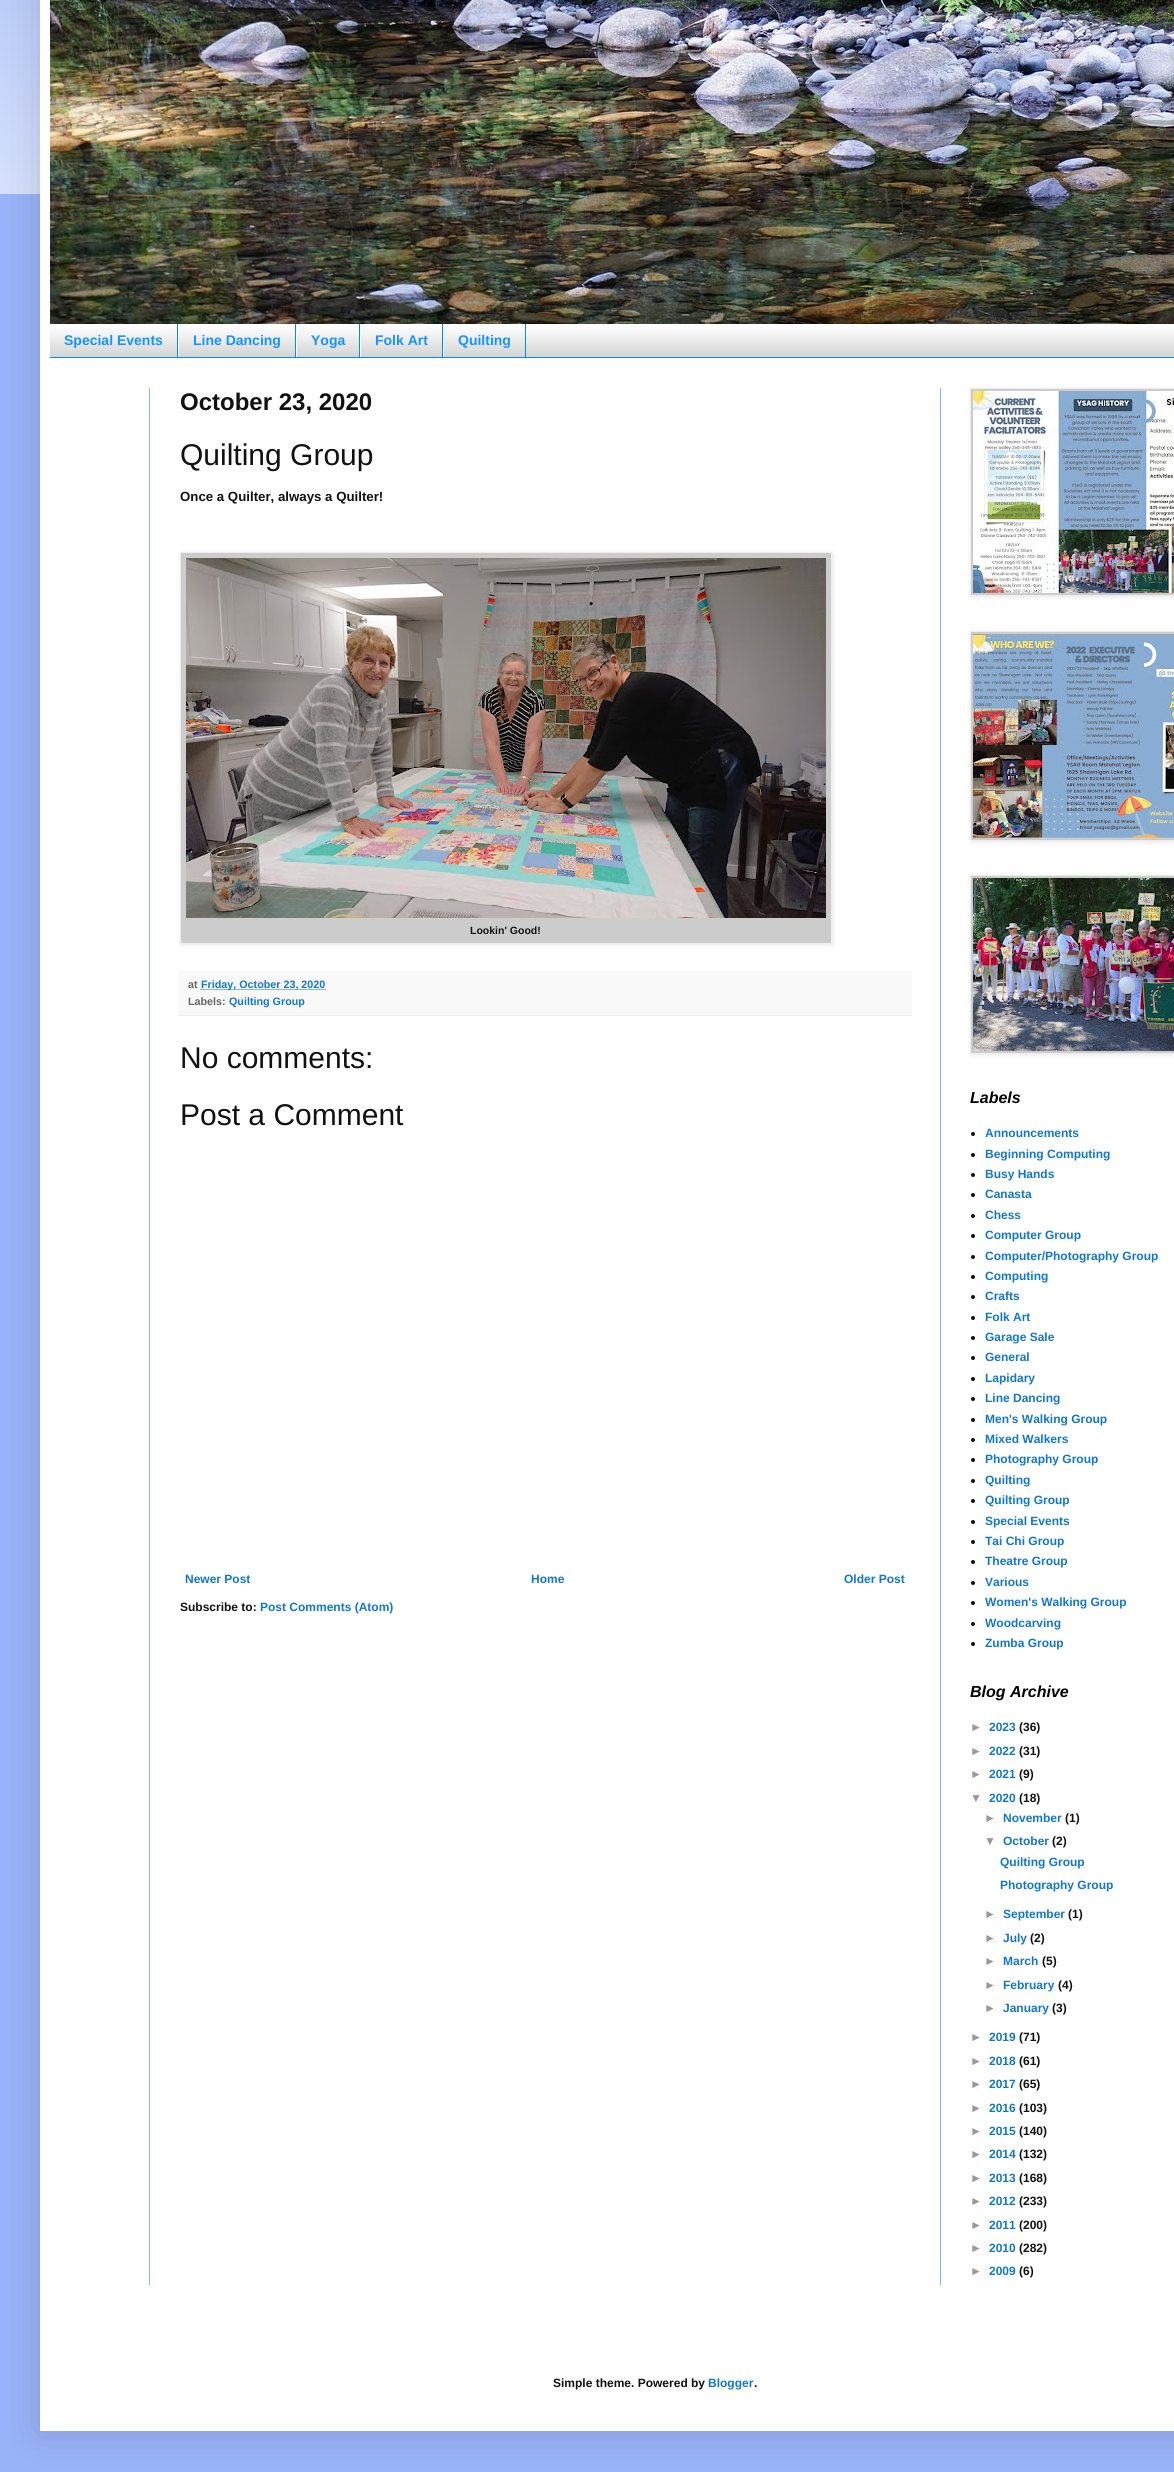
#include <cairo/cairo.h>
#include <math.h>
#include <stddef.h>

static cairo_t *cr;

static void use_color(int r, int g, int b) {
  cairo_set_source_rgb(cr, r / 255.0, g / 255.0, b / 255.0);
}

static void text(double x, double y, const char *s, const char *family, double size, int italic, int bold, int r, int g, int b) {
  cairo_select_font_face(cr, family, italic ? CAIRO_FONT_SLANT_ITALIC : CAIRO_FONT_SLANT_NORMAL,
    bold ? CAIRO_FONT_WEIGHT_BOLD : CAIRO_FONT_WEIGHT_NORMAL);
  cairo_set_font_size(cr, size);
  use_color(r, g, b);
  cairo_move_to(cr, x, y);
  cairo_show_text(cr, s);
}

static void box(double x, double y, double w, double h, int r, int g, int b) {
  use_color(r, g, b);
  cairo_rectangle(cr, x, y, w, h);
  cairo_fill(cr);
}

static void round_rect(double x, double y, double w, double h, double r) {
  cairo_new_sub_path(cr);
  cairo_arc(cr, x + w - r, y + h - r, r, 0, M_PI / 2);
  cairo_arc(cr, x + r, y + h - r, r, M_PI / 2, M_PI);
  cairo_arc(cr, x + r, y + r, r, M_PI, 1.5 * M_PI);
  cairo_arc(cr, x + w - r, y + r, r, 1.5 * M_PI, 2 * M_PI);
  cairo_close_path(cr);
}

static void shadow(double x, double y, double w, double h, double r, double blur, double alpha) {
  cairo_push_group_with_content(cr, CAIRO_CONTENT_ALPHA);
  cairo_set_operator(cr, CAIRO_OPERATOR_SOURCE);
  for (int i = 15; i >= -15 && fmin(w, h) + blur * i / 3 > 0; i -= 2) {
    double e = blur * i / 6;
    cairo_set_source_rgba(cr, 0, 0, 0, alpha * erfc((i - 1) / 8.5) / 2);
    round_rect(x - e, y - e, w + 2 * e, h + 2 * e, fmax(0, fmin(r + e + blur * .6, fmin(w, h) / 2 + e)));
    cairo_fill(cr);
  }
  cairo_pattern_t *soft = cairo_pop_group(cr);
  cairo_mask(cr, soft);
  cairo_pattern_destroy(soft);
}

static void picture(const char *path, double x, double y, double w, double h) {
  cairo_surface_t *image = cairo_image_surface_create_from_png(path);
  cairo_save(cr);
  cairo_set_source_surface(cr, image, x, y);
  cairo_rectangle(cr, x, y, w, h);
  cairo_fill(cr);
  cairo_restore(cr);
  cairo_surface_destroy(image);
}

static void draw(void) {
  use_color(153, 179, 248);
  cairo_paint(cr);
  picture("img_01.png", 0, 0, 40, 194);
  use_color(0, 0, 0);
  shadow(40, -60, 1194, 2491, 0, 20, 0.15);
  box(40, 0, 1134, 2431, 255, 255, 255);
  picture("img_02.png", 50, 0, 1124, 324);
  box(50, 325, 1124, 32, 204, 204, 204);
  picture("img_03.png", 50, 324, 1124, 33);
  box(50, 357, 1124, 1, 0, 138, 255);
  box(177, 324, 1, 33, 0, 138, 255);
  box(295, 324, 1, 33, 0, 138, 255);
  box(178, 324, 1, 33, 255, 255, 255);
  box(359, 324, 1, 33, 0, 138, 255);
  box(296, 324, 1, 33, 255, 255, 255);
  box(442, 324, 1, 33, 0, 138, 255);
  box(360, 324, 1, 33, 255, 255, 255);
  box(525, 324, 1, 33, 0, 138, 255);
  box(443, 324, 1, 33, 255, 255, 255);
  box(149, 388, 1, 1897, 127, 178, 255);
  box(940, 388, 1, 1897, 127, 178, 255);
  use_color(0, 0, 0);
  shadow(181, 553, 652, 392, 0, 2.5, 0.1);
  use_color(204, 204, 204);
  cairo_rectangle(cr, 180.5, 552.5, 651, 391);
  cairo_fill_preserve(cr);
  use_color(238, 238, 238);
  cairo_set_line_width(cr, 1);
  cairo_stroke(cr);
  picture("img_04.png", 186, 558, 640, 360);
  box(178, 971, 734, 44, 249, 249, 249);
  box(178, 1015, 734, 1, 238, 238, 238);
  cairo_new_path(cr);
  cairo_move_to(cr, 200.5, 989.5);
  cairo_line_to(cr, 325.5, 989.5);
  use_color(17, 119, 204);
  cairo_set_dash(cr, (double[]){1, 1}, 2, 0);
  cairo_stroke(cr);
  use_color(0, 0, 0);
  shadow(971, 389, 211, 208, 0, 2.5, 0.1);
  use_color(204, 204, 204);
  cairo_rectangle(cr, 970.5, 388.5, 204, 207);
  cairo_fill_preserve(cr);
  use_color(238, 238, 238);
  cairo_set_dash(cr, NULL, 0, 0);
  cairo_stroke(cr);
  picture("img_05.png", 973, 391, 201, 202);
  use_color(0, 0, 0);
  shadow(971, 632, 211, 210, 0, 2.5, 0.1);
  use_color(204, 204, 204);
  cairo_rectangle(cr, 970.5, 631.5, 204, 209);
  cairo_fill_preserve(cr);
  use_color(238, 238, 238);
  cairo_stroke(cr);
  picture("img_06.png", 973, 634, 201, 204);
  use_color(0, 0, 0);
  shadow(971, 876, 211, 179, 0, 2.5, 0.1);
  use_color(204, 204, 204);
  cairo_rectangle(cr, 970.5, 875.5, 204, 178);
  cairo_fill_preserve(cr);
  use_color(238, 238, 238);
  cairo_stroke(cr);
  picture("img_07.png", 973, 878, 201, 173);
  use_color(17, 17, 17);
  cairo_arc(cr, 973, 1134, 2, 0, 2 * M_PI);
  cairo_fill(cr);
  cairo_arc(cr, 973, 1155, 2, 0, 2 * M_PI);
  cairo_fill(cr);
  cairo_arc(cr, 973, 1175, 2, 0, 2 * M_PI);
  cairo_fill(cr);
  cairo_arc(cr, 973, 1195, 2, 0, 2 * M_PI);
  cairo_fill(cr);
  cairo_arc(cr, 973, 1216, 2, 0, 2 * M_PI);
  cairo_fill(cr);
  cairo_arc(cr, 973, 1236, 2, 0, 2 * M_PI);
  cairo_fill(cr);
  cairo_arc(cr, 973, 1257, 2, 0, 2 * M_PI);
  cairo_fill(cr);
  cairo_arc(cr, 973, 1277, 2, 0, 2 * M_PI);
  cairo_fill(cr);
  cairo_arc(cr, 973, 1297, 2, 0, 2 * M_PI);
  cairo_fill(cr);
  cairo_arc(cr, 973, 1318, 2, 0, 2 * M_PI);
  cairo_fill(cr);
  cairo_arc(cr, 973, 1338, 2, 0, 2 * M_PI);
  cairo_fill(cr);
  cairo_arc(cr, 973, 1358, 2, 0, 2 * M_PI);
  cairo_fill(cr);
  cairo_arc(cr, 973, 1379, 2, 0, 2 * M_PI);
  cairo_fill(cr);
  cairo_arc(cr, 973, 1399, 2, 0, 2 * M_PI);
  cairo_fill(cr);
  cairo_arc(cr, 973, 1420, 2, 0, 2 * M_PI);
  cairo_fill(cr);
  cairo_arc(cr, 973, 1440, 2, 0, 2 * M_PI);
  cairo_fill(cr);
  cairo_arc(cr, 973, 1460, 2, 0, 2 * M_PI);
  cairo_fill(cr);
  cairo_arc(cr, 973, 1481, 2, 0, 2 * M_PI);
  cairo_fill(cr);
  cairo_arc(cr, 973, 1501, 2, 0, 2 * M_PI);
  cairo_fill(cr);
  cairo_arc(cr, 973, 1522, 2, 0, 2 * M_PI);
  cairo_fill(cr);
  cairo_arc(cr, 973, 1542, 2, 0, 2 * M_PI);
  cairo_fill(cr);
  cairo_arc(cr, 973, 1562, 2, 0, 2 * M_PI);
  cairo_fill(cr);
  cairo_arc(cr, 973, 1583, 2, 0, 2 * M_PI);
  cairo_fill(cr);
  cairo_arc(cr, 973, 1603, 2, 0, 2 * M_PI);
  cairo_fill(cr);
  cairo_arc(cr, 973, 1624, 2, 0, 2 * M_PI);
  cairo_fill(cr);
  cairo_arc(cr, 973, 1644, 2, 0, 2 * M_PI);
  cairo_fill(cr);
  text(64, 345, "Special Events", "Liberation Sans", 14, 0, 1, 21, 148, 255);
  text(193, 345, "Line Dancing", "Liberation Sans", 14, 0, 1, 21, 148, 255);
  text(311, 345, "Yoga", "Liberation Sans", 14, 0, 1, 21, 148, 255);
  text(375, 345, "Folk Art", "Liberation Sans", 14, 0, 1, 21, 148, 255);
  text(458, 345, "Quilting", "Liberation Sans", 14, 0, 1, 21, 148, 255);
  text(180, 410, "October 23, 2020", "Liberation Sans", 24, 0, 1, 17, 17, 17);
  text(180, 465, "Quilting Group", "Liberation Sans", 30, 0, 0, 17, 17, 17);
  text(180, 501, "Once a Quilter, always a Quilter!", "Liberation Sans", 13.25, 0, 1, 17, 17, 17);
  text(470, 934, "Lookin' Good!", "Liberation Sans", 10.5, 0, 1, 17, 17, 17);
  text(188, 988, "at", "Liberation Sans", 10.75, 0, 1, 102, 102, 102);
  text(201, 988, "Friday, October 23, 2020", "Liberation Sans", 10.75, 0, 1, 17, 119, 204);
  text(188, 1005, "Labels:", "Liberation Sans", 10.75, 0, 1, 102, 102, 102);
  text(229, 1005, "Quilting Group", "Liberation Sans", 10.75, 0, 1, 17, 119, 204);
  text(180, 1068, "No comments:", "Liberation Sans", 30, 0, 0, 17, 17, 17);
  text(180, 1125, "Post a Comment", "Liberation Sans", 30, 0, 0, 17, 17, 17);
  text(185, 1583, "Newer Post", "Liberation Sans", 12, 0, 1, 17, 119, 204);
  text(531, 1583, "Home", "Liberation Sans", 12, 0, 1, 17, 119, 204);
  text(844, 1583, "Older Post", "Liberation Sans", 12, 0, 1, 17, 119, 204);
  text(180, 1611, "Subscribe to:", "Liberation Sans", 12, 0, 1, 17, 17, 17);
  text(260, 1611, "Post Comments (Atom)", "Liberation Sans", 12, 0, 1, 17, 119, 204);
  text(970, 1103, "Labels", "Liberation Sans", 16, 1, 1, 0, 0, 0);
  text(985, 1137, "Announcements", "Liberation Sans", 12, 0, 1, 17, 119, 204);
  text(985, 1158, "Beginning Computing", "Liberation Sans", 12, 0, 1, 17, 119, 204);
  text(985, 1178, "Busy Hands", "Liberation Sans", 12, 0, 1, 17, 119, 204);
  text(985, 1198, "Canasta", "Liberation Sans", 12, 0, 1, 17, 119, 204);
  text(985, 1219, "Chess", "Liberation Sans", 12, 0, 1, 17, 119, 204);
  text(985, 1239, "Computer Group", "Liberation Sans", 12, 0, 1, 17, 119, 204);
  text(985, 1260, "Computer/Photography Group", "Liberation Sans", 12, 0, 1, 17, 119, 204);
  text(985, 1280, "Computing", "Liberation Sans", 12, 0, 1, 17, 119, 204);
  text(985, 1300, "Crafts", "Liberation Sans", 12, 0, 1, 17, 119, 204);
  text(985, 1321, "Folk Art", "Liberation Sans", 12, 0, 1, 17, 119, 204);
  text(985, 1341, "Garage Sale", "Liberation Sans", 12, 0, 1, 17, 119, 204);
  text(985, 1361, "General", "Liberation Sans", 12, 0, 1, 17, 119, 204);
  text(985, 1382, "Lapidary", "Liberation Sans", 12, 0, 1, 17, 119, 204);
  text(985, 1402, "Line Dancing", "Liberation Sans", 12, 0, 1, 17, 119, 204);
  text(985, 1423, "Men's Walking Group", "Liberation Sans", 12, 0, 1, 17, 119, 204);
  text(985, 1443, "Mixed Walkers", "Liberation Sans", 12, 0, 1, 17, 119, 204);
  text(985, 1463, "Photography Group", "Liberation Sans", 12, 0, 1, 17, 119, 204);
  text(985, 1484, "Quilting", "Liberation Sans", 12, 0, 1, 17, 119, 204);
  text(985, 1504, "Quilting Group", "Liberation Sans", 12, 0, 1, 17, 119, 204);
  text(985, 1525, "Special Events", "Liberation Sans", 12, 0, 1, 17, 119, 204);
  text(985, 1545, "Tai Chi Group", "Liberation Sans", 12, 0, 1, 17, 119, 204);
  text(985, 1565, "Theatre Group", "Liberation Sans", 12, 0, 1, 17, 119, 204);
  text(985, 1586, "Various", "Liberation Sans", 12, 0, 1, 17, 119, 204);
  text(985, 1606, "Women's Walking Group", "Liberation Sans", 12, 0, 1, 17, 119, 204);
  text(985, 1627, "Woodcarving", "Liberation Sans", 12, 0, 1, 17, 119, 204);
  text(985, 1647, "Zumba Group", "Liberation Sans", 12, 0, 1, 17, 119, 204);
  text(970, 1697, "Blog Archive", "Liberation Sans", 16, 1, 1, 0, 0, 0);
  text(970, 1731, "►", "Liberation Sans", 12, 0, 1, 153, 153, 153);
  text(989, 1731, "2023", "Liberation Sans", 12, 0, 1, 17, 119, 204);
  text(1019, 1731, "(36)", "Liberation Sans", 12, 0, 1, 17, 17, 17);
  text(970, 1755, "►", "Liberation Sans", 12, 0, 1, 153, 153, 153);
  text(989, 1755, "2022", "Liberation Sans", 12, 0, 1, 17, 119, 204);
  text(1019, 1755, "(31)", "Liberation Sans", 12, 0, 1, 17, 17, 17);
  text(970, 1778, "►", "Liberation Sans", 12, 0, 1, 153, 153, 153);
  text(989, 1778, "2021", "Liberation Sans", 12, 0, 1, 17, 119, 204);
  text(1019, 1778, "(9)", "Liberation Sans", 12, 0, 1, 17, 17, 17);
  text(970, 1802, "▼", "Liberation Sans", 12, 0, 1, 153, 153, 153);
  text(989, 1802, "2020", "Liberation Sans", 12, 0, 1, 17, 119, 204);
  text(1019, 1802, "(18)", "Liberation Sans", 12, 0, 1, 17, 17, 17);
  text(984, 1822, "►", "Liberation Sans", 12, 0, 1, 153, 153, 153);
  text(1003, 1822, "November", "Liberation Sans", 12, 0, 1, 17, 119, 204);
  text(1065, 1822, "(1)", "Liberation Sans", 12, 0, 1, 17, 17, 17);
  text(984, 1845, "▼", "Liberation Sans", 12, 0, 1, 153, 153, 153);
  text(1003, 1845, "October", "Liberation Sans", 12, 0, 1, 17, 119, 204);
  text(1052, 1845, "(2)", "Liberation Sans", 12, 0, 1, 17, 17, 17);
  text(1000, 1866, "Quilting Group", "Liberation Sans", 12, 0, 1, 17, 119, 204);
  text(1000, 1889, "Photography Group", "Liberation Sans", 12, 0, 1, 17, 119, 204);
  text(984, 1918, "►", "Liberation Sans", 12, 0, 1, 153, 153, 153);
  text(1003, 1918, "September", "Liberation Sans", 12, 0, 1, 17, 119, 204);
  text(1068, 1918, "(1)", "Liberation Sans", 12, 0, 1, 17, 17, 17);
  text(984, 1942, "►", "Liberation Sans", 12, 0, 1, 153, 153, 153);
  text(1003, 1942, "July", "Liberation Sans", 12, 0, 1, 17, 119, 204);
  text(1030, 1942, "(2)", "Liberation Sans", 12, 0, 1, 17, 17, 17);
  text(984, 1965, "►", "Liberation Sans", 12, 0, 1, 153, 153, 153);
  text(1003, 1965, "March", "Liberation Sans", 12, 0, 1, 17, 119, 204);
  text(1042, 1965, "(5)", "Liberation Sans", 12, 0, 1, 17, 17, 17);
  text(984, 1989, "►", "Liberation Sans", 12, 0, 1, 153, 153, 153);
  text(1003, 1989, "February", "Liberation Sans", 12, 0, 1, 17, 119, 204);
  text(1058, 1989, "(4)", "Liberation Sans", 12, 0, 1, 17, 17, 17);
  text(984, 2012, "►", "Liberation Sans", 12, 0, 1, 153, 153, 153);
  text(1003, 2012, "January", "Liberation Sans", 12, 0, 1, 17, 119, 204);
  text(1052, 2012, "(3)", "Liberation Sans", 12, 0, 1, 17, 17, 17);
  text(970, 2041, "►", "Liberation Sans", 12, 0, 1, 153, 153, 153);
  text(989, 2041, "2019", "Liberation Sans", 12, 0, 1, 17, 119, 204);
  text(1019, 2041, "(71)", "Liberation Sans", 12, 0, 1, 17, 17, 17);
  text(970, 2065, "►", "Liberation Sans", 12, 0, 1, 153, 153, 153);
  text(989, 2065, "2018", "Liberation Sans", 12, 0, 1, 17, 119, 204);
  text(1019, 2065, "(61)", "Liberation Sans", 12, 0, 1, 17, 17, 17);
  text(970, 2088, "►", "Liberation Sans", 12, 0, 1, 153, 153, 153);
  text(989, 2088, "2017", "Liberation Sans", 12, 0, 1, 17, 119, 204);
  text(1019, 2088, "(65)", "Liberation Sans", 12, 0, 1, 17, 17, 17);
  text(970, 2112, "►", "Liberation Sans", 12, 0, 1, 153, 153, 153);
  text(989, 2112, "2016", "Liberation Sans", 12, 0, 1, 17, 119, 204);
  text(1019, 2112, "(103)", "Liberation Sans", 12, 0, 1, 17, 17, 17);
  text(970, 2135, "►", "Liberation Sans", 12, 0, 1, 153, 153, 153);
  text(989, 2135, "2015", "Liberation Sans", 12, 0, 1, 17, 119, 204);
  text(1019, 2135, "(140)", "Liberation Sans", 12, 0, 1, 17, 17, 17);
  text(970, 2158, "►", "Liberation Sans", 12, 0, 1, 153, 153, 153);
  text(989, 2158, "2014", "Liberation Sans", 12, 0, 1, 17, 119, 204);
  text(1019, 2158, "(132)", "Liberation Sans", 12, 0, 1, 17, 17, 17);
  text(970, 2182, "►", "Liberation Sans", 12, 0, 1, 153, 153, 153);
  text(989, 2182, "2013", "Liberation Sans", 12, 0, 1, 17, 119, 204);
  text(1019, 2182, "(168)", "Liberation Sans", 12, 0, 1, 17, 17, 17);
  text(970, 2205, "►", "Liberation Sans", 12, 0, 1, 153, 153, 153);
  text(989, 2205, "2012", "Liberation Sans", 12, 0, 1, 17, 119, 204);
  text(1019, 2205, "(233)", "Liberation Sans", 12, 0, 1, 17, 17, 17);
  text(970, 2229, "►", "Liberation Sans", 12, 0, 1, 153, 153, 153);
  text(989, 2229, "2011", "Liberation Sans", 12, 0, 1, 17, 119, 204);
  text(1019, 2229, "(200)", "Liberation Sans", 12, 0, 1, 17, 17, 17);
  text(970, 2252, "►", "Liberation Sans", 12, 0, 1, 153, 153, 153);
  text(989, 2252, "2010", "Liberation Sans", 12, 0, 1, 17, 119, 204);
  text(1019, 2252, "(282)", "Liberation Sans", 12, 0, 1, 17, 17, 17);
  text(970, 2275, "►", "Liberation Sans", 12, 0, 1, 153, 153, 153);
  text(989, 2275, "2009", "Liberation Sans", 12, 0, 1, 17, 119, 204);
  text(1019, 2275, "(6)", "Liberation Sans", 12, 0, 1, 17, 17, 17);
  text(553, 2387, "Simple theme. Powered by", "Liberation Sans", 12, 0, 1, 17, 17, 17);
  text(708, 2387, "Blogger", "Liberation Sans", 12, 0, 1, 17, 119, 204);
  text(754, 2387, ".", "Liberation Sans", 12, 0, 1, 17, 17, 17);
}

int main(void) {
  cairo_surface_t *surface = cairo_image_surface_create(CAIRO_FORMAT_RGB24, 1174, 2472);
  cr = cairo_create(surface);
  cairo_font_options_t *options = cairo_font_options_create();
  cairo_font_options_set_hint_metrics(options, CAIRO_HINT_METRICS_OFF);
  cairo_font_options_set_hint_style(options, CAIRO_HINT_STYLE_NONE);
  cairo_set_font_options(cr, options);
  cairo_set_miter_limit(cr, 4);
  draw();
  cairo_surface_write_to_png(surface, "out.png");
  cairo_font_options_destroy(options);
  cairo_destroy(cr);
  cairo_surface_destroy(surface);
  return 0;
}
